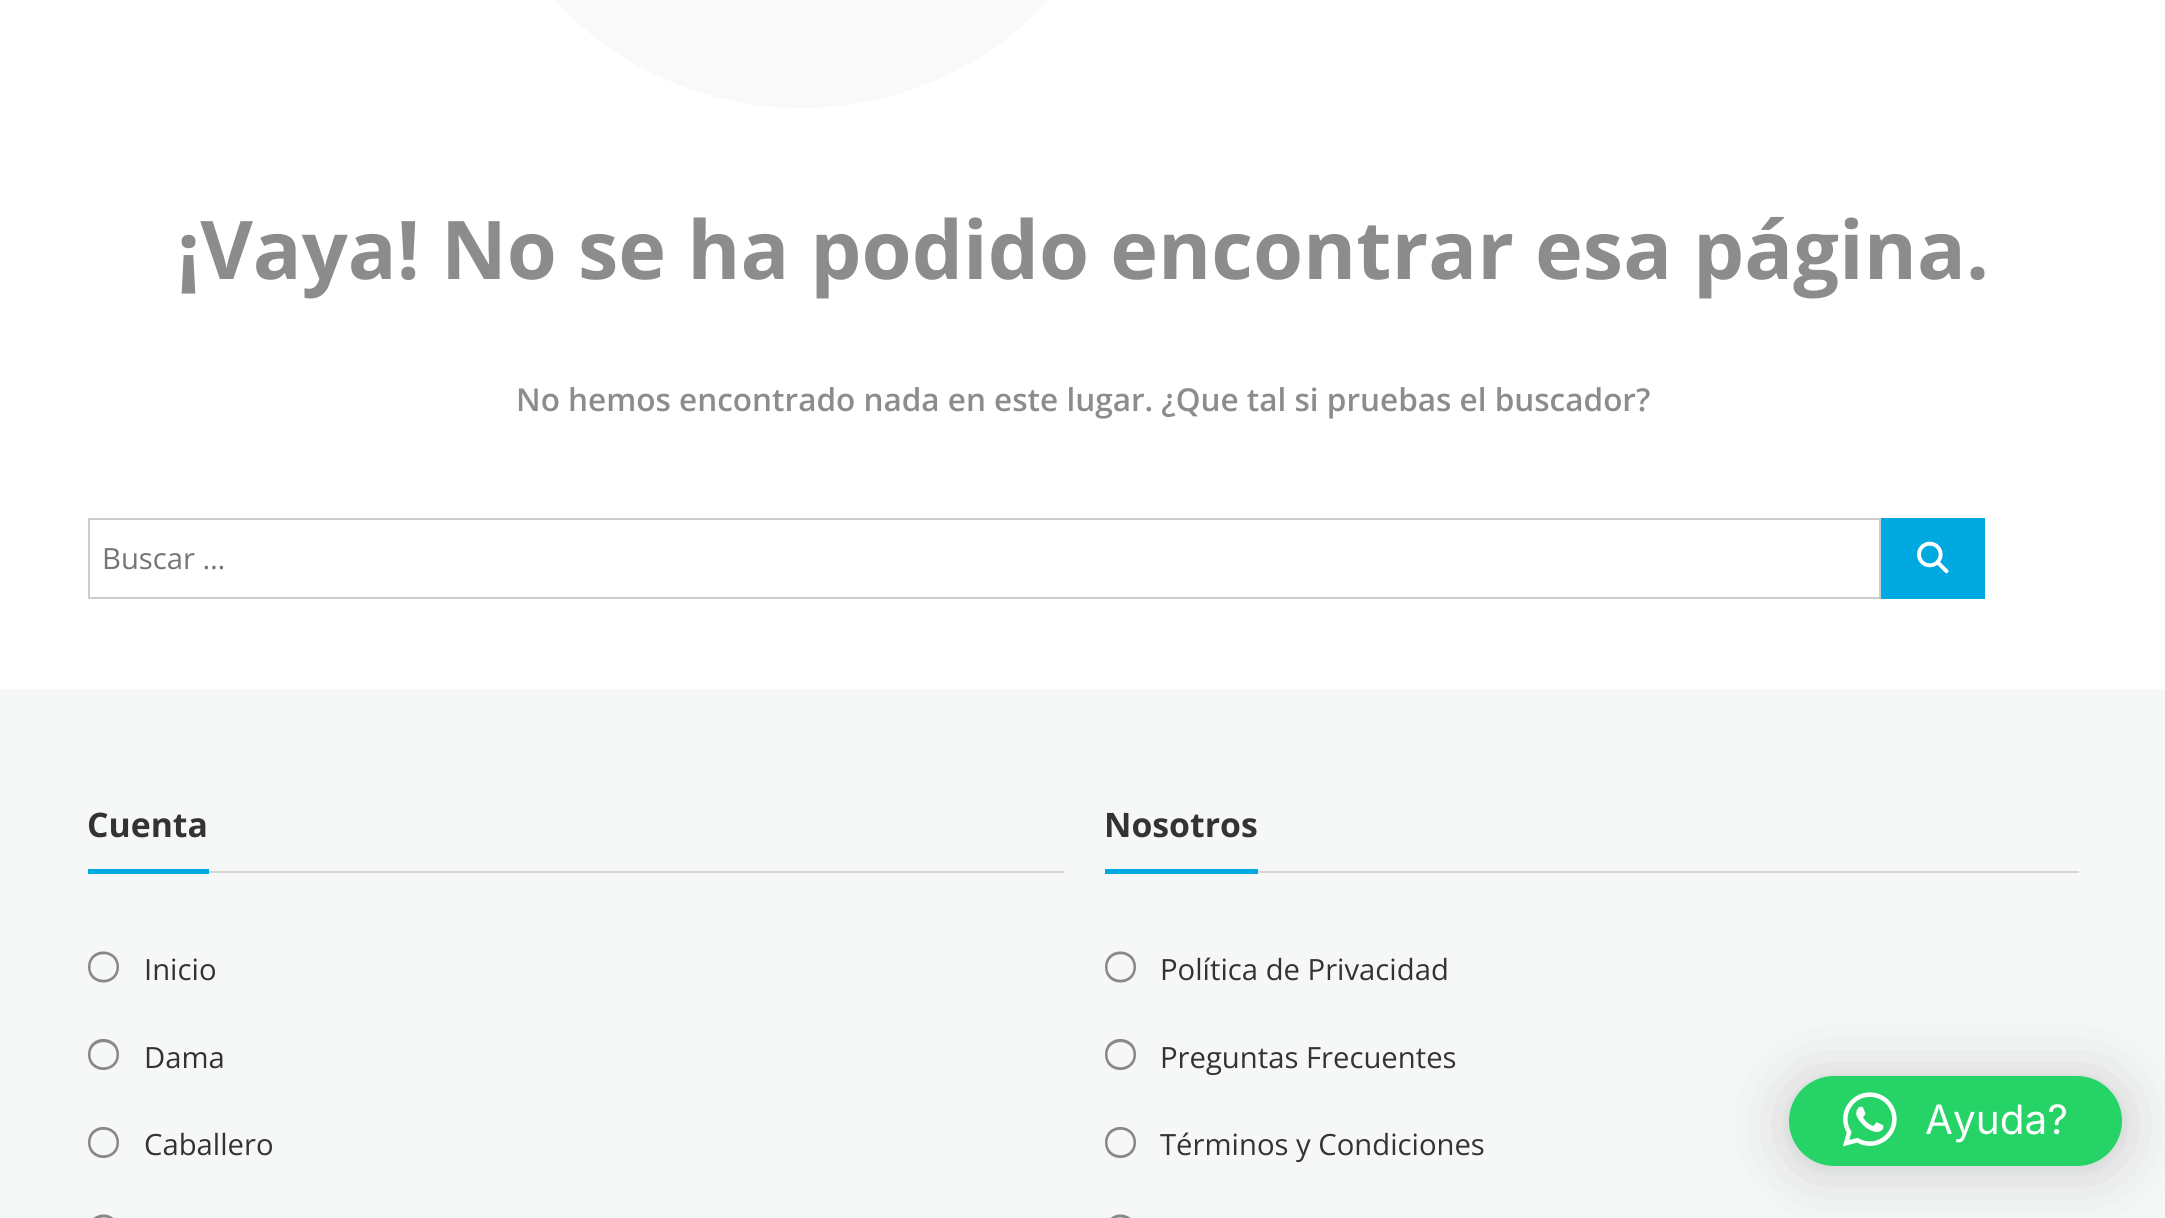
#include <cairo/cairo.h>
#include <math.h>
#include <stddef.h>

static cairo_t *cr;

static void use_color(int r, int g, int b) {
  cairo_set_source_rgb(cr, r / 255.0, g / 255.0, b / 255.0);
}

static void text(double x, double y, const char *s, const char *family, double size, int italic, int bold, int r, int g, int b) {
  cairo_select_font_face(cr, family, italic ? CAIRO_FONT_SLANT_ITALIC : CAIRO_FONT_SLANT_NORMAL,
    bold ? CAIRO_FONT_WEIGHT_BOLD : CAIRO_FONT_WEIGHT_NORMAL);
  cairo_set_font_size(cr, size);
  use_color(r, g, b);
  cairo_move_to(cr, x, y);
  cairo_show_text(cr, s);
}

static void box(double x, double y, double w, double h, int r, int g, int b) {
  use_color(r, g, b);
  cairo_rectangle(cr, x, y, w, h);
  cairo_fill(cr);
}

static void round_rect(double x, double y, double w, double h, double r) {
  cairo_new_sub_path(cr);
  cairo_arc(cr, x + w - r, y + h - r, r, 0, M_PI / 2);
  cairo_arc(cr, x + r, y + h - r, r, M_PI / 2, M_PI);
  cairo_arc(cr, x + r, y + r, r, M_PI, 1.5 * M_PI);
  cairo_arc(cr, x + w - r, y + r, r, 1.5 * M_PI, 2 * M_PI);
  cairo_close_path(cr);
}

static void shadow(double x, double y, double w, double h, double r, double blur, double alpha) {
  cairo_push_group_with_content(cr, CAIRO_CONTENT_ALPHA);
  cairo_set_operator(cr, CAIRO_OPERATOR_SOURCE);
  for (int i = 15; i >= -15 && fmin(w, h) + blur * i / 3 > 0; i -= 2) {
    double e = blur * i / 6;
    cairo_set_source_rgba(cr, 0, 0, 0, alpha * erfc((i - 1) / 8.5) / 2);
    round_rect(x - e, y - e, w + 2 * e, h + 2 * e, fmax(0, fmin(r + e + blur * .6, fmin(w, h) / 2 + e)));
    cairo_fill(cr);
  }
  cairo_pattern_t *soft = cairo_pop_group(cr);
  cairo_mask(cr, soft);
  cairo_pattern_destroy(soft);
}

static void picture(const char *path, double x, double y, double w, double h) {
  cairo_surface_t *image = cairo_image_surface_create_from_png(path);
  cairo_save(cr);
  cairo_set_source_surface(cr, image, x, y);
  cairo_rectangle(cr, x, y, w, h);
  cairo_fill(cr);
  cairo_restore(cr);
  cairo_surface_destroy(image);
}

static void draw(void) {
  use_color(255, 255, 255);
  cairo_paint(cr);
  use_color(249, 249, 249);
  round_rect(464, -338, 675, 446, 337.5);
  cairo_fill(cr);
  cairo_rectangle(cr, 89, 519, 1791, 79);
  use_color(204, 204, 204);
  cairo_stroke(cr);
  box(1881, 518, 104, 81, 0, 169, 224);
  picture("img_01.png", 1917, 541, 32, 33);
  box(0, 689, 2165, 529, 246, 247, 247);
  box(209, 871, 855, 2, 214, 214, 214);
  box(88, 869, 121, 5, 0, 169, 224);
  use_color(136, 136, 136);
  cairo_new_path(cr);
  cairo_move_to(cr, 116.5, 967);
  cairo_curve_to(cr, 116.5, 950, 90.5, 950, 90.5, 967);
  cairo_curve_to(cr, 90.5, 984, 116.5, 984, 116.5, 967);
  cairo_close_path(cr);
  cairo_move_to(cr, 88, 967);
  cairo_curve_to(cr, 88, 946, 119, 946.5, 119, 967);
  cairo_curve_to(cr, 119, 987.5, 88, 988, 88, 967);
  cairo_close_path(cr);
  cairo_fill(cr);
  cairo_new_path(cr);
  cairo_move_to(cr, 116.5, 1054.5);
  cairo_curve_to(cr, 116.5, 1038, 90.5, 1038, 90.5, 1054.5);
  cairo_curve_to(cr, 90.5, 1071.5, 116.5, 1071.5, 116.5, 1054.5);
  cairo_close_path(cr);
  cairo_move_to(cr, 88, 1054.5);
  cairo_curve_to(cr, 88, 1033.5, 119, 1034, 119, 1054.5);
  cairo_curve_to(cr, 119, 1075, 88, 1075.5, 88, 1054.5);
  cairo_close_path(cr);
  cairo_fill(cr);
  cairo_new_path(cr);
  cairo_move_to(cr, 116.5, 1142.5);
  cairo_curve_to(cr, 116.5, 1125.5, 90.5, 1125.5, 90.5, 1142.5);
  cairo_curve_to(cr, 90.5, 1159.5, 116.5, 1159.5, 116.5, 1142.5);
  cairo_close_path(cr);
  cairo_move_to(cr, 88, 1142.5);
  cairo_curve_to(cr, 88, 1121.5, 119, 1122, 119, 1142.5);
  cairo_curve_to(cr, 119, 1163, 88, 1163.5, 88, 1142.5);
  cairo_close_path(cr);
  cairo_fill(cr);
  picture("img_02.png", 93, 1214, 21, 4);
  box(1258, 871, 821, 2, 214, 214, 214);
  box(1105, 869, 153, 5, 0, 169, 224);
  use_color(136, 136, 136);
  cairo_new_path(cr);
  cairo_move_to(cr, 1133.5, 967);
  cairo_curve_to(cr, 1133.5, 950, 1107.5, 950, 1107.5, 967);
  cairo_curve_to(cr, 1107.5, 984, 1133.5, 984, 1133.5, 967);
  cairo_close_path(cr);
  cairo_move_to(cr, 1105, 967);
  cairo_curve_to(cr, 1105, 946, 1136, 946.5, 1136, 967);
  cairo_curve_to(cr, 1136, 987.5, 1105, 988, 1105, 967);
  cairo_close_path(cr);
  cairo_fill(cr);
  cairo_new_path(cr);
  cairo_move_to(cr, 1133.5, 1054.5);
  cairo_curve_to(cr, 1133.5, 1038, 1107.5, 1038, 1107.5, 1054.5);
  cairo_curve_to(cr, 1107.5, 1071.5, 1133.5, 1071.5, 1133.5, 1054.5);
  cairo_close_path(cr);
  cairo_move_to(cr, 1105, 1054.5);
  cairo_curve_to(cr, 1105, 1033.5, 1136, 1034, 1136, 1054.5);
  cairo_curve_to(cr, 1136, 1075, 1105, 1075.5, 1105, 1054.5);
  cairo_close_path(cr);
  cairo_fill(cr);
  cairo_new_path(cr);
  cairo_move_to(cr, 1133.5, 1142.5);
  cairo_curve_to(cr, 1133.5, 1125.5, 1107.5, 1125.5, 1107.5, 1142.5);
  cairo_curve_to(cr, 1107.5, 1159.5, 1133.5, 1159.5, 1133.5, 1142.5);
  cairo_close_path(cr);
  cairo_move_to(cr, 1105, 1142.5);
  cairo_curve_to(cr, 1105, 1121.5, 1136, 1122, 1136, 1142.5);
  cairo_curve_to(cr, 1136, 1163, 1105, 1163.5, 1105, 1142.5);
  cairo_close_path(cr);
  cairo_fill(cr);
  picture("img_03.png", 1110, 1214, 21, 4);
  use_color(0, 0, 0);
  shadow(1789, 1080, 333, 90, 45, 36, 0.16);
  shadow(1789, 1078, 333, 90, 45, 7, 0.06);
  use_color(37, 211, 102);
  round_rect(1789, 1076, 333, 90, 45);
  cairo_fill(cr);
  picture("img_04.png", 1843, 1092, 54, 55);
  text(177, 279, "¡Vaya! No se ha podido encontrar esa página.", "Open Sans", 81, 0, 1, 140, 140, 140);
  text(516, 411, "No hemos encontrado nada en este lugar. ¿Que tal si pruebas el buscador?", "Open Sans SemiBold", 31.5, 0, 0, 140, 140, 140);
  text(102, 569, "Buscar …", "Open Sans", 29.25, 0, 0, 117, 117, 117);
  text(87, 837, "Cuenta", "Open Sans", 33.75, 0, 1, 51, 51, 51);
  text(144, 980, "Inicio", "Open Sans", 29.25, 0, 0, 51, 51, 51);
  text(144, 1068, "Dama", "Open Sans", 29.25, 0, 0, 51, 51, 51);
  text(144, 1155, "Caballero", "Open Sans", 29.25, 0, 0, 51, 51, 51);
  text(1104, 837, "Nosotros", "Open Sans", 33.75, 0, 1, 51, 51, 51);
  text(1160, 980, "Política de Privacidad", "Open Sans", 29.25, 0, 0, 51, 51, 51);
  text(1160, 1068, "Preguntas Frecuentes", "Open Sans", 29.25, 0, 0, 51, 51, 51);
  text(1160, 1155, "Términos y Condiciones", "Open Sans", 29.25, 0, 0, 51, 51, 51);
  text(1925, 1134, "Ayuda?", "Inter", 40.5, 0, 0, 255, 255, 255);
}

int main(void) {
  cairo_surface_t *surface = cairo_image_surface_create(CAIRO_FORMAT_RGB24, 2165, 1218);
  cr = cairo_create(surface);
  cairo_font_options_t *options = cairo_font_options_create();
  cairo_font_options_set_hint_metrics(options, CAIRO_HINT_METRICS_OFF);
  cairo_font_options_set_hint_style(options, CAIRO_HINT_STYLE_NONE);
  cairo_set_font_options(cr, options);
  cairo_set_miter_limit(cr, 4);
  draw();
  cairo_surface_write_to_png(surface, "out.png");
  cairo_font_options_destroy(options);
  cairo_destroy(cr);
  cairo_surface_destroy(surface);
  return 0;
}
